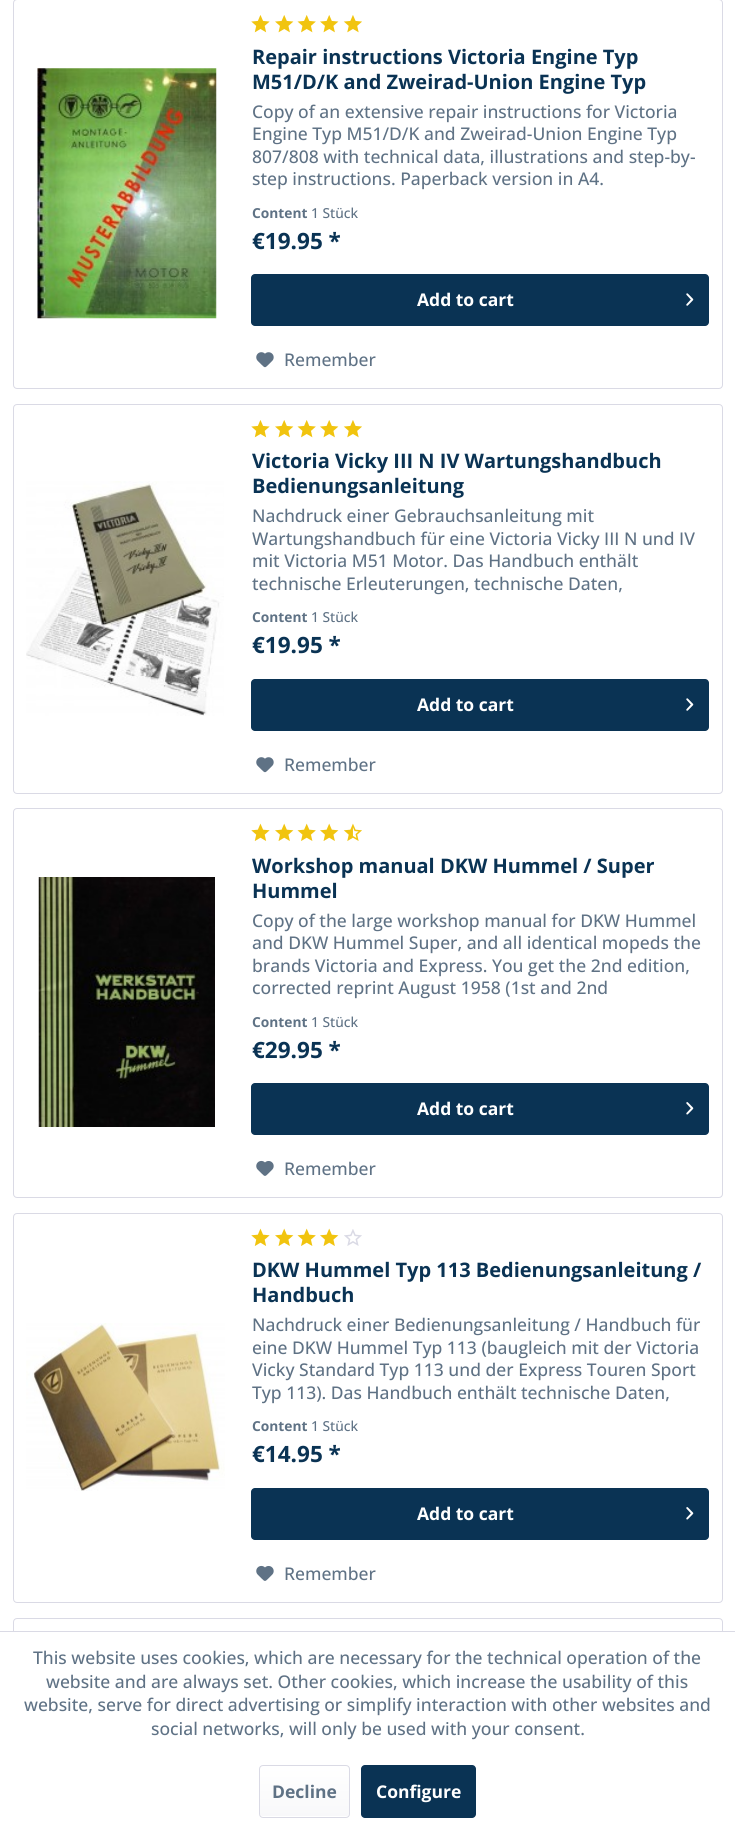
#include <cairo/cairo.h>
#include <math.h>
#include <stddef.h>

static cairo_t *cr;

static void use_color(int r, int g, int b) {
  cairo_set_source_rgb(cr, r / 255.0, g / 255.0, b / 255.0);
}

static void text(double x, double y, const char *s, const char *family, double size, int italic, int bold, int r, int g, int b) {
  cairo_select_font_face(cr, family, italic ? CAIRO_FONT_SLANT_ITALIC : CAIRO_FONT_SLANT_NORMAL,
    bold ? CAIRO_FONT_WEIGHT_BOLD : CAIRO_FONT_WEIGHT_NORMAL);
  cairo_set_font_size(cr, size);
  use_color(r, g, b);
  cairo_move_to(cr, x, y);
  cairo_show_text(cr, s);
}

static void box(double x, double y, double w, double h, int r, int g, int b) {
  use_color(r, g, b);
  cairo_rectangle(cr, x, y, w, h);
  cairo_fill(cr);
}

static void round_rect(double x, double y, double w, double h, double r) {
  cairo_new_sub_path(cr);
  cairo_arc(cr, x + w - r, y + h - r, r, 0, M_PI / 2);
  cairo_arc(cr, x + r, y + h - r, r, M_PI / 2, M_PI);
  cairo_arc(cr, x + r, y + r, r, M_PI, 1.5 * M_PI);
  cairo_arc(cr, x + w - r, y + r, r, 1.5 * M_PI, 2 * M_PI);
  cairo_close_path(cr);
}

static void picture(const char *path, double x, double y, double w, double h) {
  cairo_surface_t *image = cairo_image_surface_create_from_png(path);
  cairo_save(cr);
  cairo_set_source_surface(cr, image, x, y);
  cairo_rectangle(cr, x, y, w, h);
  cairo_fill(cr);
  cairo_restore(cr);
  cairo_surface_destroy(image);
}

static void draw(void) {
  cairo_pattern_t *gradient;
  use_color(255, 255, 255);
  cairo_paint(cr);
  round_rect(13.5, -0.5, 709, 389, 3.5);
  use_color(218, 218, 229);
  cairo_set_line_width(cr, 1);
  cairo_stroke(cr);
  picture("img_01.png", 251, 15, 19, 18);
  picture("img_02.png", 275, 15, 19, 18);
  picture("img_03.png", 297, 15, 19, 18);
  picture("img_02.png", 320, 15, 19, 18);
  picture("img_04.png", 343, 15, 19, 18);
  picture("img_05.png", 37, 68, 180, 251);
  use_color(10, 51, 84);
  round_rect(251, 274, 458, 52, 4);
  cairo_fill(cr);
  picture("img_06.png", 686, 293, 8, 13);
  picture("img_07.png", 256, 352, 18, 16);
  round_rect(13.5, 404.5, 709, 389, 3.5);
  use_color(218, 218, 229);
  cairo_stroke(cr);
  picture("img_01.png", 251, 420, 19, 18);
  picture("img_02.png", 275, 420, 19, 18);
  picture("img_03.png", 297, 420, 19, 18);
  picture("img_02.png", 320, 420, 19, 18);
  picture("img_04.png", 343, 420, 19, 18);
  picture("img_08.png", 26, 481, 198, 235);
  use_color(10, 51, 84);
  round_rect(251, 679, 458, 52, 4);
  cairo_fill(cr);
  picture("img_06.png", 686, 698, 8, 13);
  picture("img_07.png", 256, 757, 18, 16);
  round_rect(13.5, 808.5, 709, 389, 3.5);
  use_color(218, 218, 229);
  cairo_stroke(cr);
  picture("img_09.png", 251, 823, 19, 18);
  picture("img_10.png", 275, 823, 19, 18);
  picture("img_11.png", 297, 823, 19, 18);
  picture("img_10.png", 320, 823, 19, 18);
  picture("img_12.png", 343, 823, 19, 18);
  picture("img_13.png", 38, 877, 177, 250);
  use_color(10, 51, 84);
  round_rect(251, 1083, 458, 52, 4);
  cairo_fill(cr);
  picture("img_14.png", 686, 1102, 8, 13);
  picture("img_15.png", 256, 1160, 18, 16);
  round_rect(13.5, 1213.5, 709, 389, 3.5);
  use_color(218, 218, 229);
  cairo_stroke(cr);
  picture("img_09.png", 251, 1228, 19, 18);
  picture("img_10.png", 275, 1228, 19, 18);
  picture("img_11.png", 297, 1228, 19, 18);
  picture("img_10.png", 320, 1228, 19, 18);
  picture("img_16.png", 344, 1229, 18, 17);
  picture("img_17.png", 26, 1323, 199, 168);
  use_color(10, 51, 84);
  round_rect(251, 1488, 458, 52, 4);
  cairo_fill(cr);
  picture("img_14.png", 686, 1507, 8, 13);
  picture("img_15.png", 256, 1565, 18, 16);
  round_rect(13.5, 1618.5, 709, 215, 3.5);
  use_color(218, 218, 229);
  cairo_stroke(cr);
  box(13, 1632, 710, 197, 255, 255, 255);
  box(0, 1631, 735, 1, 218, 218, 229);
  gradient = cairo_pattern_create_linear(304, 1766, 304, 1816);
  cairo_pattern_add_color_stop_rgba(gradient, 0, 1, 1, 1, 1);
  cairo_pattern_add_color_stop_rgba(gradient, 1, 0.973, 0.973, 0.98, 1);
  cairo_set_source(cr, gradient);
  cairo_pattern_destroy(gradient);
  round_rect(260, 1766, 89, 50, 2.5);
  cairo_fill(cr);
  round_rect(259.5, 1765.5, 90, 52, 3.5);
  use_color(218, 218, 229);
  cairo_stroke(cr);
  use_color(10, 51, 84);
  round_rect(361, 1765, 115, 53, 4);
  cairo_fill(cr);
  text(252, 64, "Repair instructions Victoria Engine Typ", "Open Sans", 20, 0, 1, 10, 51, 84);
  text(252, 89, "M51/D/K and Zweirad-Union Engine Typ", "Open Sans", 20, 0, 1, 10, 51, 84);
  text(252, 118, "Copy of an extensive repair instructions for Victoria", "Open Sans Medium", 17.5, 0, 0, 95, 114, 133);
  text(252, 140, "Engine Typ M51/D/K and Zweirad-Union Engine Typ", "Open Sans Medium", 17.5, 0, 0, 95, 114, 133);
  text(252, 163, "807/808 with technical data, illustrations and step-by-", "Open Sans Medium", 17.5, 0, 0, 95, 114, 133);
  text(252, 185, "step instructions. Paperback version in A4.", "Open Sans Medium", 17.5, 0, 0, 95, 114, 133);
  text(252, 218, "Content", "Open Sans", 13.75, 0, 1, 95, 114, 133);
  text(311, 218, "1 Stück", "Open Sans Medium", 13.75, 0, 0, 95, 114, 133);
  text(252, 249, "€19.95 *", "Open Sans", 22.5, 0, 1, 10, 51, 84);
  text(417, 306, "Add to cart", "Open Sans", 17.5, 0, 1, 255, 255, 255);
  text(284, 366, "Remember", "Open Sans Medium", 17.5, 0, 0, 95, 114, 133);
  text(252, 468, "Victoria Vicky III N IV Wartungshandbuch", "Open Sans", 20, 0, 1, 10, 51, 84);
  text(252, 493, "Bedienungsanleitung", "Open Sans", 20, 0, 1, 10, 51, 84);
  text(252, 522, "Nachdruck einer Gebrauchsanleitung mit", "Open Sans Medium", 17.5, 0, 0, 95, 114, 133);
  text(252, 545, "Wartungshandbuch für eine Victoria Vicky III N und IV", "Open Sans Medium", 17.5, 0, 0, 95, 114, 133);
  text(252, 567, "mit Victoria M51 Motor. Das Handbuch enthält", "Open Sans Medium", 17.5, 0, 0, 95, 114, 133);
  text(252, 590, "technische Erleuterungen, technische Daten,", "Open Sans Medium", 17.5, 0, 0, 95, 114, 133);
  text(252, 622, "Content", "Open Sans", 13.75, 0, 1, 95, 114, 133);
  text(311, 622, "1 Stück", "Open Sans Medium", 13.75, 0, 0, 95, 114, 133);
  text(252, 653, "€19.95 *", "Open Sans", 22.5, 0, 1, 10, 51, 84);
  text(417, 711, "Add to cart", "Open Sans", 17.5, 0, 1, 255, 255, 255);
  text(284, 771, "Remember", "Open Sans Medium", 17.5, 0, 0, 95, 114, 133);
  text(252, 873, "Workshop manual DKW Hummel / Super", "Open Sans", 20, 0, 1, 10, 51, 84);
  text(252, 898, "Hummel", "Open Sans", 20, 0, 1, 10, 51, 84);
  text(252, 927, "Copy of the large workshop manual for DKW Hummel", "Open Sans Medium", 17.5, 0, 0, 95, 114, 133);
  text(252, 949, "and DKW Hummel Super, and all identical mopeds the", "Open Sans Medium", 17.5, 0, 0, 95, 114, 133);
  text(252, 972, "brands Victoria and Express. You get the 2nd edition,", "Open Sans Medium", 17.5, 0, 0, 95, 114, 133);
  text(252, 994, "corrected reprint August 1958 (1st and 2nd", "Open Sans Medium", 17.5, 0, 0, 95, 114, 133);
  text(252, 1027, "Content", "Open Sans", 13.75, 0, 1, 95, 114, 133);
  text(311, 1027, "1 Stück", "Open Sans Medium", 13.75, 0, 0, 95, 114, 133);
  text(252, 1058, "€29.95 *", "Open Sans", 22.5, 0, 1, 10, 51, 84);
  text(417, 1115, "Add to cart", "Open Sans", 17.5, 0, 1, 255, 255, 255);
  text(284, 1175, "Remember", "Open Sans Medium", 17.5, 0, 0, 95, 114, 133);
  text(252, 1277, "DKW Hummel Typ 113 Bedienungsanleitung /", "Open Sans", 20, 0, 1, 10, 51, 84);
  text(252, 1302, "Handbuch", "Open Sans", 20, 0, 1, 10, 51, 84);
  text(252, 1331, "Nachdruck einer Bedienungsanleitung / Handbuch für", "Open Sans Medium", 17.5, 0, 0, 95, 114, 133);
  text(252, 1354, "eine DKW Hummel Typ 113 (baugleich mit der Victoria", "Open Sans Medium", 17.5, 0, 0, 95, 114, 133);
  text(252, 1376, "Vicky Standard Typ 113 und der Express Touren Sport", "Open Sans Medium", 17.5, 0, 0, 95, 114, 133);
  text(252, 1399, "Typ 113). Das Handbuch enthält technische Daten,", "Open Sans Medium", 17.5, 0, 0, 95, 114, 133);
  text(252, 1431, "Content", "Open Sans", 13.75, 0, 1, 95, 114, 133);
  text(311, 1431, "1 Stück", "Open Sans Medium", 13.75, 0, 0, 95, 114, 133);
  text(252, 1462, "€14.95 *", "Open Sans", 22.5, 0, 1, 10, 51, 84);
  text(417, 1520, "Add to cart", "Open Sans", 17.5, 0, 1, 255, 255, 255);
  text(284, 1580, "Remember", "Open Sans Medium", 17.5, 0, 0, 95, 114, 133);
  text(33, 1664, "This website uses cookies, which are necessary for the technical operation of the", "Open Sans Medium", 17.5, 0, 0, 95, 114, 133);
  text(46, 1688, "website and are always set. Other cookies, which increase the usability of this", "Open Sans Medium", 17.5, 0, 0, 95, 114, 133);
  text(24, 1711, "website, serve for direct advertising or simplify interaction with other websites and", "Open Sans Medium", 17.5, 0, 0, 95, 114, 133);
  text(151, 1735, "social networks, will only be used with your consent.", "Open Sans Medium", 17.5, 0, 0, 95, 114, 133);
  text(272, 1798, "Decline", "Open Sans", 17.5, 0, 1, 95, 114, 133);
  text(376, 1798, "Configure", "Open Sans", 17.5, 0, 1, 255, 255, 255);
}

int main(void) {
  cairo_surface_t *surface = cairo_image_surface_create(CAIRO_FORMAT_RGB24, 735, 1829);
  cr = cairo_create(surface);
  cairo_font_options_t *options = cairo_font_options_create();
  cairo_font_options_set_hint_metrics(options, CAIRO_HINT_METRICS_OFF);
  cairo_font_options_set_hint_style(options, CAIRO_HINT_STYLE_NONE);
  cairo_set_font_options(cr, options);
  cairo_set_miter_limit(cr, 4);
  draw();
  cairo_surface_write_to_png(surface, "out.png");
  cairo_font_options_destroy(options);
  cairo_destroy(cr);
  cairo_surface_destroy(surface);
  return 0;
}
